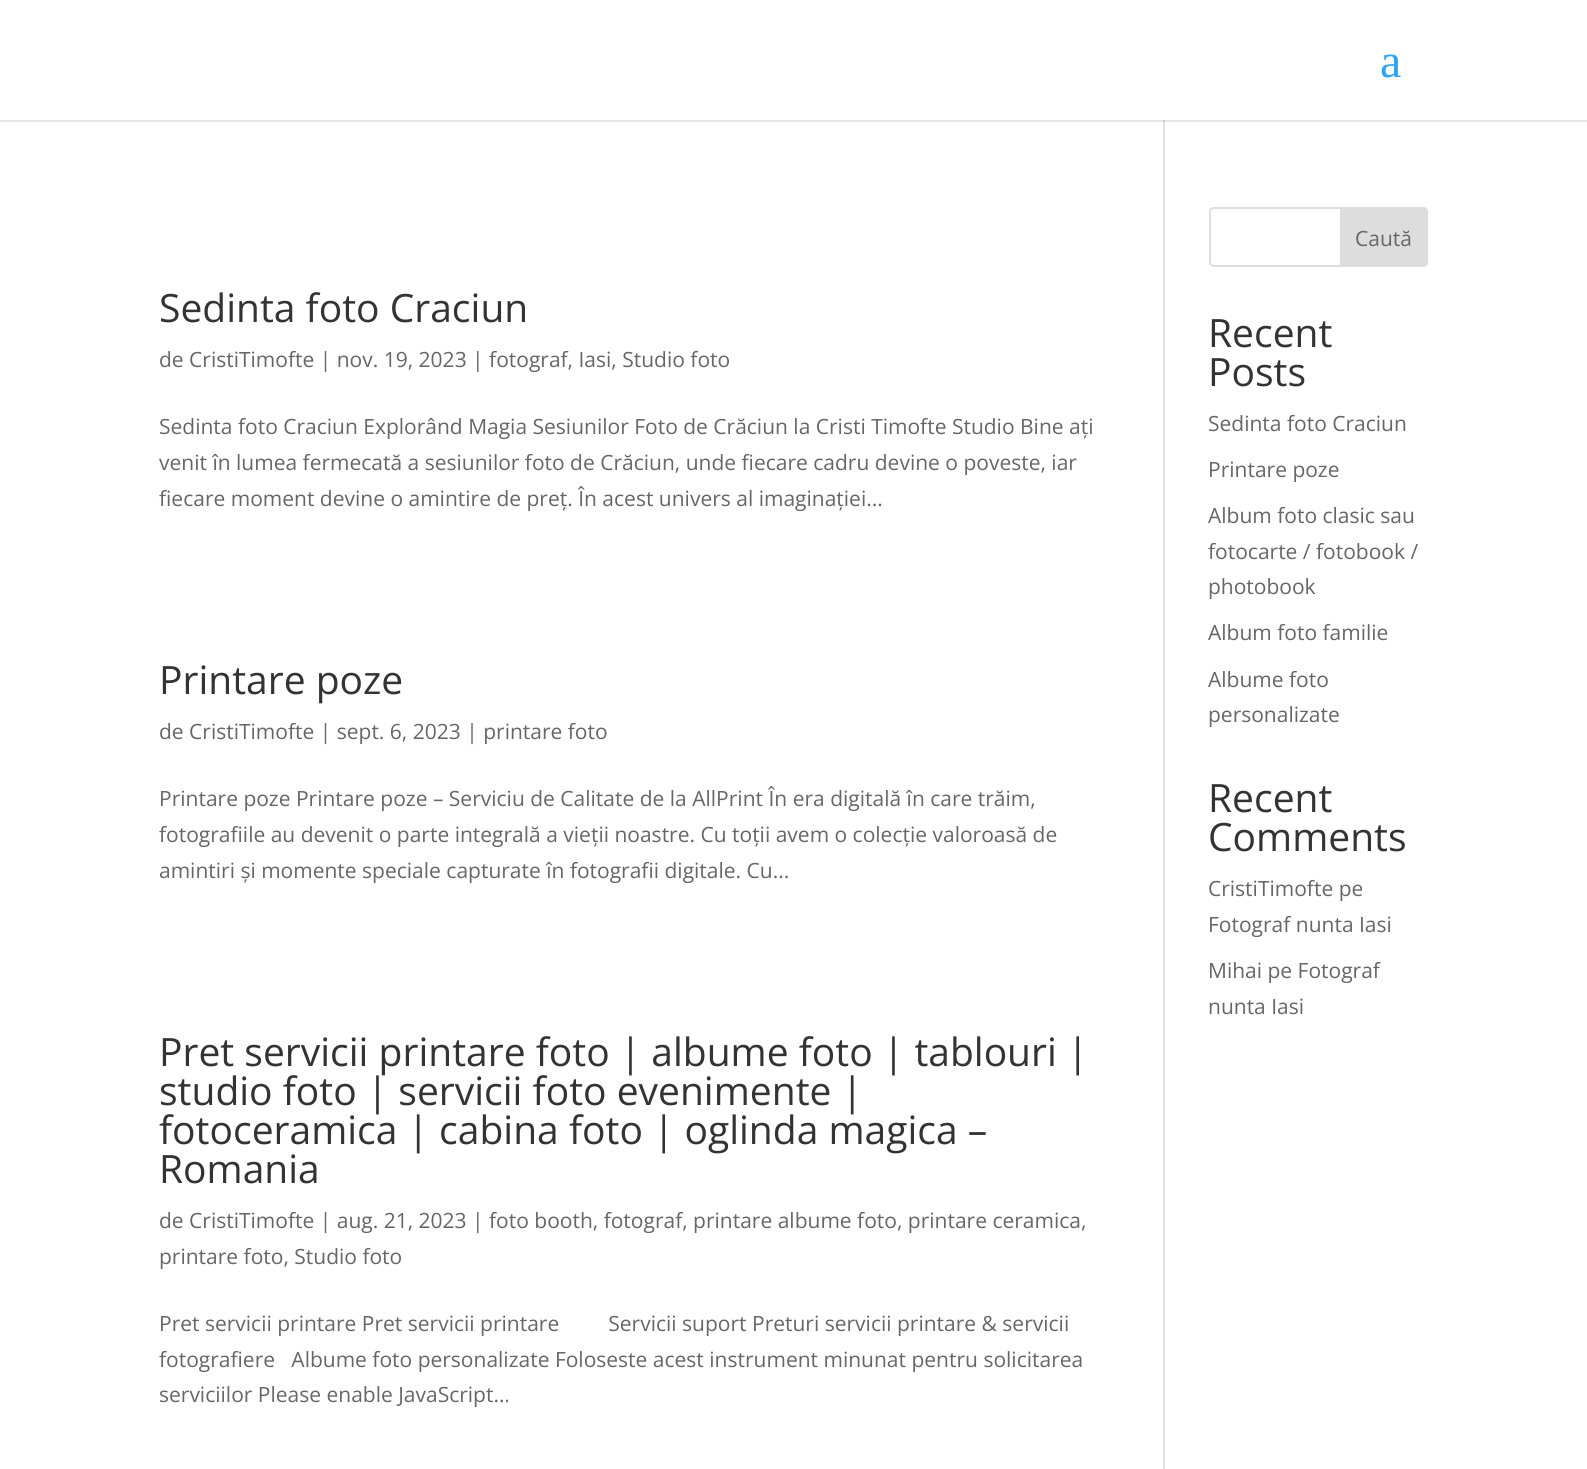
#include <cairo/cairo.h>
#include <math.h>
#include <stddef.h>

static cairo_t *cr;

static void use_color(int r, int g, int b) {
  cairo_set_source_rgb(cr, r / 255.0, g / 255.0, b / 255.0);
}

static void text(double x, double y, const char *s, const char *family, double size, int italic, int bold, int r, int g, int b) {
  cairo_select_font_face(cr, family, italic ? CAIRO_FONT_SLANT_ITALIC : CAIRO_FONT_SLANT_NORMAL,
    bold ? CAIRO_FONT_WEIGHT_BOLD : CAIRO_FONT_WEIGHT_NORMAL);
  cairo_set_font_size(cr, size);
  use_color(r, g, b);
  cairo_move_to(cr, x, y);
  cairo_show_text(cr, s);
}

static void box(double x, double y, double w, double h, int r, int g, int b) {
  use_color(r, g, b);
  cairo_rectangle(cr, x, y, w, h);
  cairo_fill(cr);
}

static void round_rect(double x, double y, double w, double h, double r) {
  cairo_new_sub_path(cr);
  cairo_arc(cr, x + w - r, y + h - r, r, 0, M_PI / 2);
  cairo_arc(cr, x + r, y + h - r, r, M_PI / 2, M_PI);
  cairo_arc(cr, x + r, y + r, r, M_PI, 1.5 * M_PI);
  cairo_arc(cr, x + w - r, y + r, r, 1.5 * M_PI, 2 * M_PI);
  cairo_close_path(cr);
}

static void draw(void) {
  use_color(255, 255, 255);
  cairo_paint(cr);
  box(0, 120, 1587, 2, 230, 230, 230);
  box(1163, 120, 2, 1349, 226, 226, 226);
  box(1163, 120, 2, 2, 203, 203, 203);
  round_rect(1210, 208, 217, 58, 4);
  use_color(221, 221, 221);
  cairo_stroke(cr);
  cairo_new_path(cr);
  cairo_move_to(cr, 1341, 208);
  cairo_line_to(cr, 1423, 208);
  cairo_curve_to(cr, 1425, 208, 1427, 210, 1427, 212);
  cairo_line_to(cr, 1427, 262);
  cairo_curve_to(cr, 1427, 264, 1425, 266, 1423, 266);
  cairo_line_to(cr, 1341, 266);
  cairo_close_path(cr);
  cairo_fill_preserve(cr);
  cairo_stroke(cr);
  text(1380, 77, "a", "Liberation Serif", 48, 0, 0, 46, 163, 242);
  text(159, 322, "Sedinta foto Craciun", "Open Sans", 39, 0, 0, 51, 51, 51);
  text(159, 367, "de CristiTimofte | nov. 19, 2023 | fotograf, Iasi, Studio foto", "Open Sans", 21, 0, 0, 102, 102, 102);
  text(159, 434, "Sedinta foto Craciun Explorând Magia Sesiunilor Foto de Crăciun la Cristi Timofte Studio Bine ați", "Open Sans", 21, 0, 0, 102, 102, 102);
  text(159, 470, "venit în lumea fermecată a sesiunilor foto de Crăciun, unde fiecare cadru devine o poveste, iar", "Open Sans", 21, 0, 0, 102, 102, 102);
  text(159, 506, "fiecare moment devine o amintire de preț. În acest univers al imaginației...", "Open Sans", 21, 0, 0, 102, 102, 102);
  text(159, 694, "Printare poze", "Open Sans", 39, 0, 0, 51, 51, 51);
  text(159, 739, "de CristiTimofte | sept. 6, 2023 | printare foto", "Open Sans", 21, 0, 0, 102, 102, 102);
  text(159, 806, "Printare poze Printare poze – Serviciu de Calitate de la AllPrint În era digitală în care trăim,", "Open Sans", 21, 0, 0, 102, 102, 102);
  text(159, 842, "fotografiile au devenit o parte integrală a vieții noastre. Cu toții avem o colecție valoroasă de", "Open Sans", 21, 0, 0, 102, 102, 102);
  text(159, 878, "amintiri și momente speciale capturate în fotografii digitale. Cu...", "Open Sans", 21, 0, 0, 102, 102, 102);
  text(159, 1066, "Pret servicii printare foto | albume foto | tablouri |", "Open Sans", 39, 0, 0, 51, 51, 51);
  text(159, 1105, "studio foto | servicii foto evenimente |", "Open Sans", 39, 0, 0, 51, 51, 51);
  text(159, 1144, "fotoceramica | cabina foto | oglinda magica –", "Open Sans", 39, 0, 0, 51, 51, 51);
  text(159, 1183, "Romania", "Open Sans", 39, 0, 0, 51, 51, 51);
  text(159, 1228, "de CristiTimofte | aug. 21, 2023 | foto booth, fotograf, printare albume foto, printare ceramica,", "Open Sans", 21, 0, 0, 102, 102, 102);
  text(159, 1264, "printare foto, Studio foto", "Open Sans", 21, 0, 0, 102, 102, 102);
  text(159, 1331, "Pret servicii printare Pret servicii printare         Servicii suport Preturi servicii printare & servicii", "Open Sans", 21, 0, 0, 102, 102, 102);
  text(159, 1367, "fotografiere   Albume foto personalizate Foloseste acest instrument minunat pentru solicitarea", "Open Sans", 21, 0, 0, 102, 102, 102);
  text(159, 1402, "serviciilor Please enable JavaScript...", "Open Sans", 21, 0, 0, 102, 102, 102);
  text(1355, 246, "Caută", "Open Sans", 21, 0, 0, 102, 102, 102);
  text(1208, 347, "Recent", "Open Sans", 39, 0, 0, 51, 51, 51);
  text(1208, 386, "Posts", "Open Sans", 39, 0, 0, 51, 51, 51);
  text(1208, 431, "Sedinta foto Craciun", "Open Sans", 21, 0, 0, 102, 102, 102);
  text(1208, 477, "Printare poze", "Open Sans", 21, 0, 0, 102, 102, 102);
  text(1208, 523, "Album foto clasic sau", "Open Sans", 21, 0, 0, 102, 102, 102);
  text(1208, 559, "fotocarte / fotobook /", "Open Sans", 21, 0, 0, 102, 102, 102);
  text(1208, 594, "photobook", "Open Sans", 21, 0, 0, 102, 102, 102);
  text(1208, 640, "Album foto familie", "Open Sans", 21, 0, 0, 102, 102, 102);
  text(1208, 687, "Albume foto", "Open Sans", 21, 0, 0, 102, 102, 102);
  text(1208, 722, "personalizate", "Open Sans", 21, 0, 0, 102, 102, 102);
  text(1208, 812, "Recent", "Open Sans", 39, 0, 0, 51, 51, 51);
  text(1208, 851, "Comments", "Open Sans", 39, 0, 0, 51, 51, 51);
  text(1208, 896, "CristiTimofte pe", "Open Sans", 21, 0, 0, 102, 102, 102);
  text(1208, 932, "Fotograf nunta Iasi", "Open Sans", 21, 0, 0, 102, 102, 102);
  text(1208, 978, "Mihai pe Fotograf", "Open Sans", 21, 0, 0, 102, 102, 102);
  text(1208, 1014, "nunta Iasi", "Open Sans", 21, 0, 0, 102, 102, 102);
}

int main(void) {
  cairo_surface_t *surface = cairo_image_surface_create(CAIRO_FORMAT_RGB24, 1587, 1469);
  cr = cairo_create(surface);
  cairo_font_options_t *options = cairo_font_options_create();
  cairo_font_options_set_hint_metrics(options, CAIRO_HINT_METRICS_OFF);
  cairo_font_options_set_hint_style(options, CAIRO_HINT_STYLE_NONE);
  cairo_set_font_options(cr, options);
  cairo_set_miter_limit(cr, 4);
  draw();
  cairo_surface_write_to_png(surface, "out.png");
  cairo_font_options_destroy(options);
  cairo_destroy(cr);
  cairo_surface_destroy(surface);
  return 0;
}
